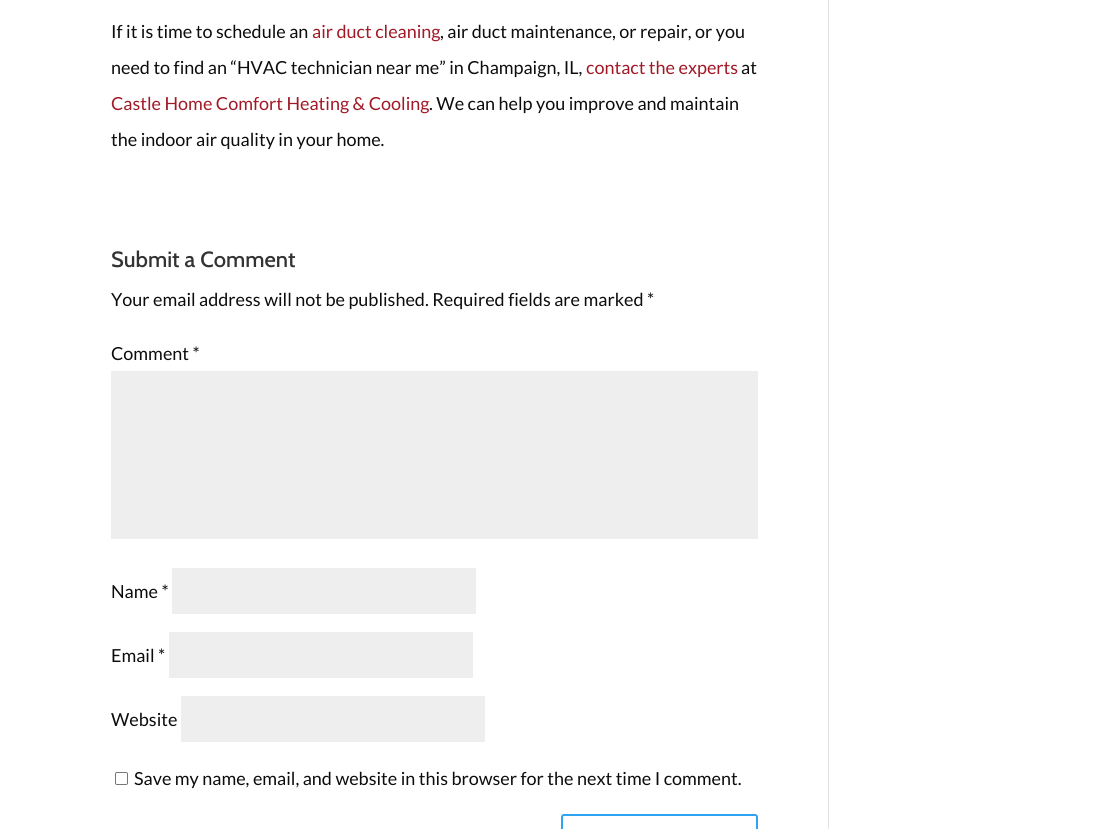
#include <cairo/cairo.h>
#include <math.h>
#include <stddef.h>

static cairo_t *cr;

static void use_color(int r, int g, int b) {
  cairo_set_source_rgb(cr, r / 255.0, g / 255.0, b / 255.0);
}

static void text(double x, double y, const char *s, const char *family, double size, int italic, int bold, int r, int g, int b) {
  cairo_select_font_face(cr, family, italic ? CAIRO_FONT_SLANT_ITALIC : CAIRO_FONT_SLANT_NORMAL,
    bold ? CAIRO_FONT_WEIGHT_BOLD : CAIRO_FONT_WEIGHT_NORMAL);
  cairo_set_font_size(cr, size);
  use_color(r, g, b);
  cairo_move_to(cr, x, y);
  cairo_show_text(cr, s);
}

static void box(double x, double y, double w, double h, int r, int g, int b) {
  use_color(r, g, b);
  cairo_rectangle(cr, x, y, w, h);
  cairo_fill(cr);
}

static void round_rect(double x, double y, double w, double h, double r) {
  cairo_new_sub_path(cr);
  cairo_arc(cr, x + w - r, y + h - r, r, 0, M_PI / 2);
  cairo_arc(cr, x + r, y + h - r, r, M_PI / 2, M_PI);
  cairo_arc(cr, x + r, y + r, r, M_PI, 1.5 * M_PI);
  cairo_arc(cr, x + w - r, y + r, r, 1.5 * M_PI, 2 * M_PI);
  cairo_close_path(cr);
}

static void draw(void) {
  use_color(255, 255, 255);
  cairo_paint(cr);
  box(111, 371, 647, 168, 238, 238, 238);
  box(172, 568, 304, 46, 238, 238, 238);
  box(169, 632, 304, 46, 238, 238, 238);
  box(181, 696, 304, 46, 238, 238, 238);
  round_rect(115.5, 772.5, 12, 12, 1.5);
  use_color(118, 118, 118);
  cairo_set_line_width(cr, 1);
  cairo_stroke(cr);
  round_rect(562, 815, 195, 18, 2);
  use_color(46, 163, 242);
  cairo_set_line_width(cr, 2);
  cairo_stroke(cr);
  box(828, 0, 1, 829, 226, 226, 226);
  text(111, 38, "If it is time to schedule an", "Lato", 18, 0, 0, 12, 12, 12);
  text(312, 38, "air duct cleaning", "Lato", 18, 0, 0, 161, 24, 38);
  text(440, 38, ", air duct maintenance, or repair, or you", "Lato", 18, 0, 0, 12, 12, 12);
  text(111, 74, "need to find an “HVAC technician near me” in Champaign, IL,", "Lato", 18, 0, 0, 12, 12, 12);
  text(586, 74, "contact the experts", "Lato", 18, 0, 0, 161, 24, 38);
  text(741, 74, "at", "Lato", 18, 0, 0, 12, 12, 12);
  text(111, 110, "Castle Home Comfort Heating & Cooling", "Lato", 18, 0, 0, 161, 24, 38);
  text(429, 110, ". We can help you improve and maintain", "Lato", 18, 0, 0, 12, 12, 12);
  text(111, 146, "the indoor air quality in your home.", "Lato", 18, 0, 0, 12, 12, 12);
  text(111, 267, "Submit a Comment", "Cabin Medium", 22, 0, 0, 51, 51, 51);
  text(111, 306, "Your email address will not be published. Required fields are marked *", "Lato", 18, 0, 0, 12, 12, 12);
  text(111, 360, "Comment *", "Lato", 18, 0, 0, 12, 12, 12);
  text(111, 598, "Name *", "Lato", 18, 0, 0, 12, 12, 12);
  text(111, 662, "Email *", "Lato", 18, 0, 0, 12, 12, 12);
  text(111, 726, "Website", "Lato", 18, 0, 0, 12, 12, 12);
  text(134, 785, "Save my name, email, and website in this browser for the next time I comment.", "Lato", 18, 0, 0, 12, 12, 12);
}

int main(void) {
  cairo_surface_t *surface = cairo_image_surface_create(CAIRO_FORMAT_RGB24, 1108, 829);
  cr = cairo_create(surface);
  cairo_font_options_t *options = cairo_font_options_create();
  cairo_font_options_set_hint_metrics(options, CAIRO_HINT_METRICS_OFF);
  cairo_font_options_set_hint_style(options, CAIRO_HINT_STYLE_NONE);
  cairo_set_font_options(cr, options);
  cairo_set_miter_limit(cr, 4);
  draw();
  cairo_surface_write_to_png(surface, "out.png");
  cairo_font_options_destroy(options);
  cairo_destroy(cr);
  cairo_surface_destroy(surface);
  return 0;
}
